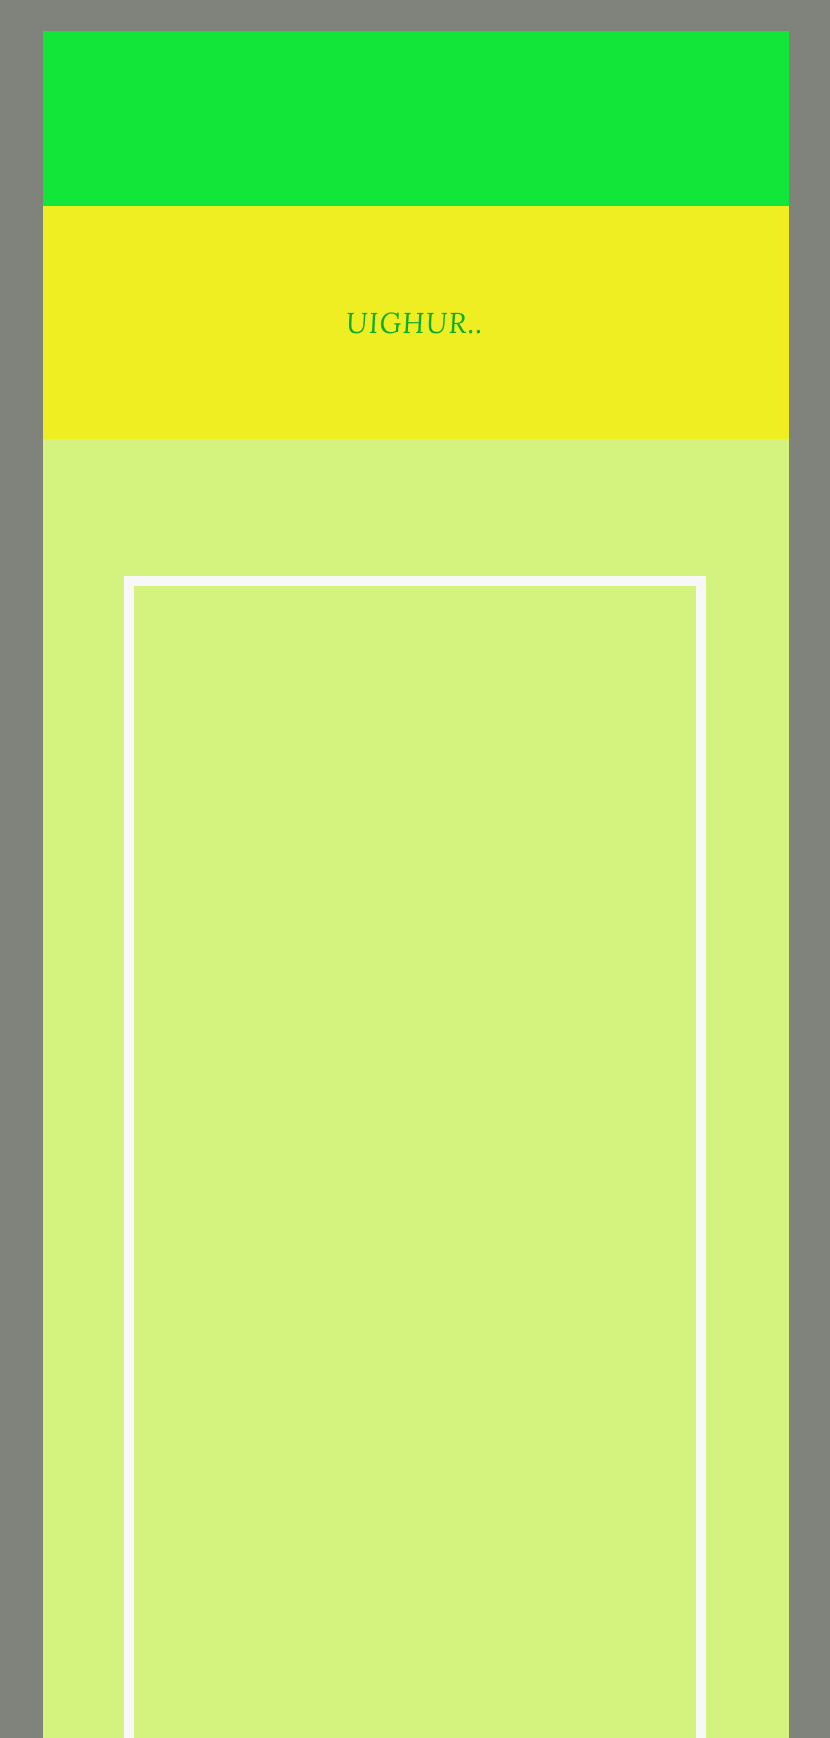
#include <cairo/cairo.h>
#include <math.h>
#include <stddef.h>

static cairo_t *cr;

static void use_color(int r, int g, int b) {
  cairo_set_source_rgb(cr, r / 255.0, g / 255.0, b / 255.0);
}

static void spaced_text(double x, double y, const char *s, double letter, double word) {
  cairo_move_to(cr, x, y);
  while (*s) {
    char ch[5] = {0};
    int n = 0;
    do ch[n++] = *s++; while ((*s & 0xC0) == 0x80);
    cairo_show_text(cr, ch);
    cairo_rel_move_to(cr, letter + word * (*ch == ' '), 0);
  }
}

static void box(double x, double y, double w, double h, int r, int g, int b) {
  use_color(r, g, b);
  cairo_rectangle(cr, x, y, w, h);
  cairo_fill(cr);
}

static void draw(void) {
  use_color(128, 131, 123);
  cairo_paint(cr);
  box(43, 439, 746, 1299, 212, 243, 126);
  box(43, 31, 746, 175, 18, 231, 57);
  box(43, 206, 746, 233, 238, 238, 34);
  cairo_rectangle(cr, 129, 581, 572, 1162);
  use_color(248, 248, 248);
  cairo_set_line_width(cr, 10);
  cairo_stroke(cr);
  cairo_select_font_face(cr, "Lora", CAIRO_FONT_SLANT_ITALIC, CAIRO_FONT_WEIGHT_NORMAL);
  cairo_set_font_size(cr, 28.75);
  use_color(13, 174, 42);
  spaced_text(346, 333, "UIGHUR..", 1.25, 0);
}

int main(void) {
  cairo_surface_t *surface = cairo_image_surface_create(CAIRO_FORMAT_RGB24, 830, 1738);
  cr = cairo_create(surface);
  cairo_font_options_t *options = cairo_font_options_create();
  cairo_font_options_set_hint_metrics(options, CAIRO_HINT_METRICS_OFF);
  cairo_font_options_set_hint_style(options, CAIRO_HINT_STYLE_NONE);
  cairo_set_font_options(cr, options);
  cairo_set_miter_limit(cr, 4);
  draw();
  cairo_surface_write_to_png(surface, "out.png");
  cairo_font_options_destroy(options);
  cairo_destroy(cr);
  cairo_surface_destroy(surface);
  return 0;
}
